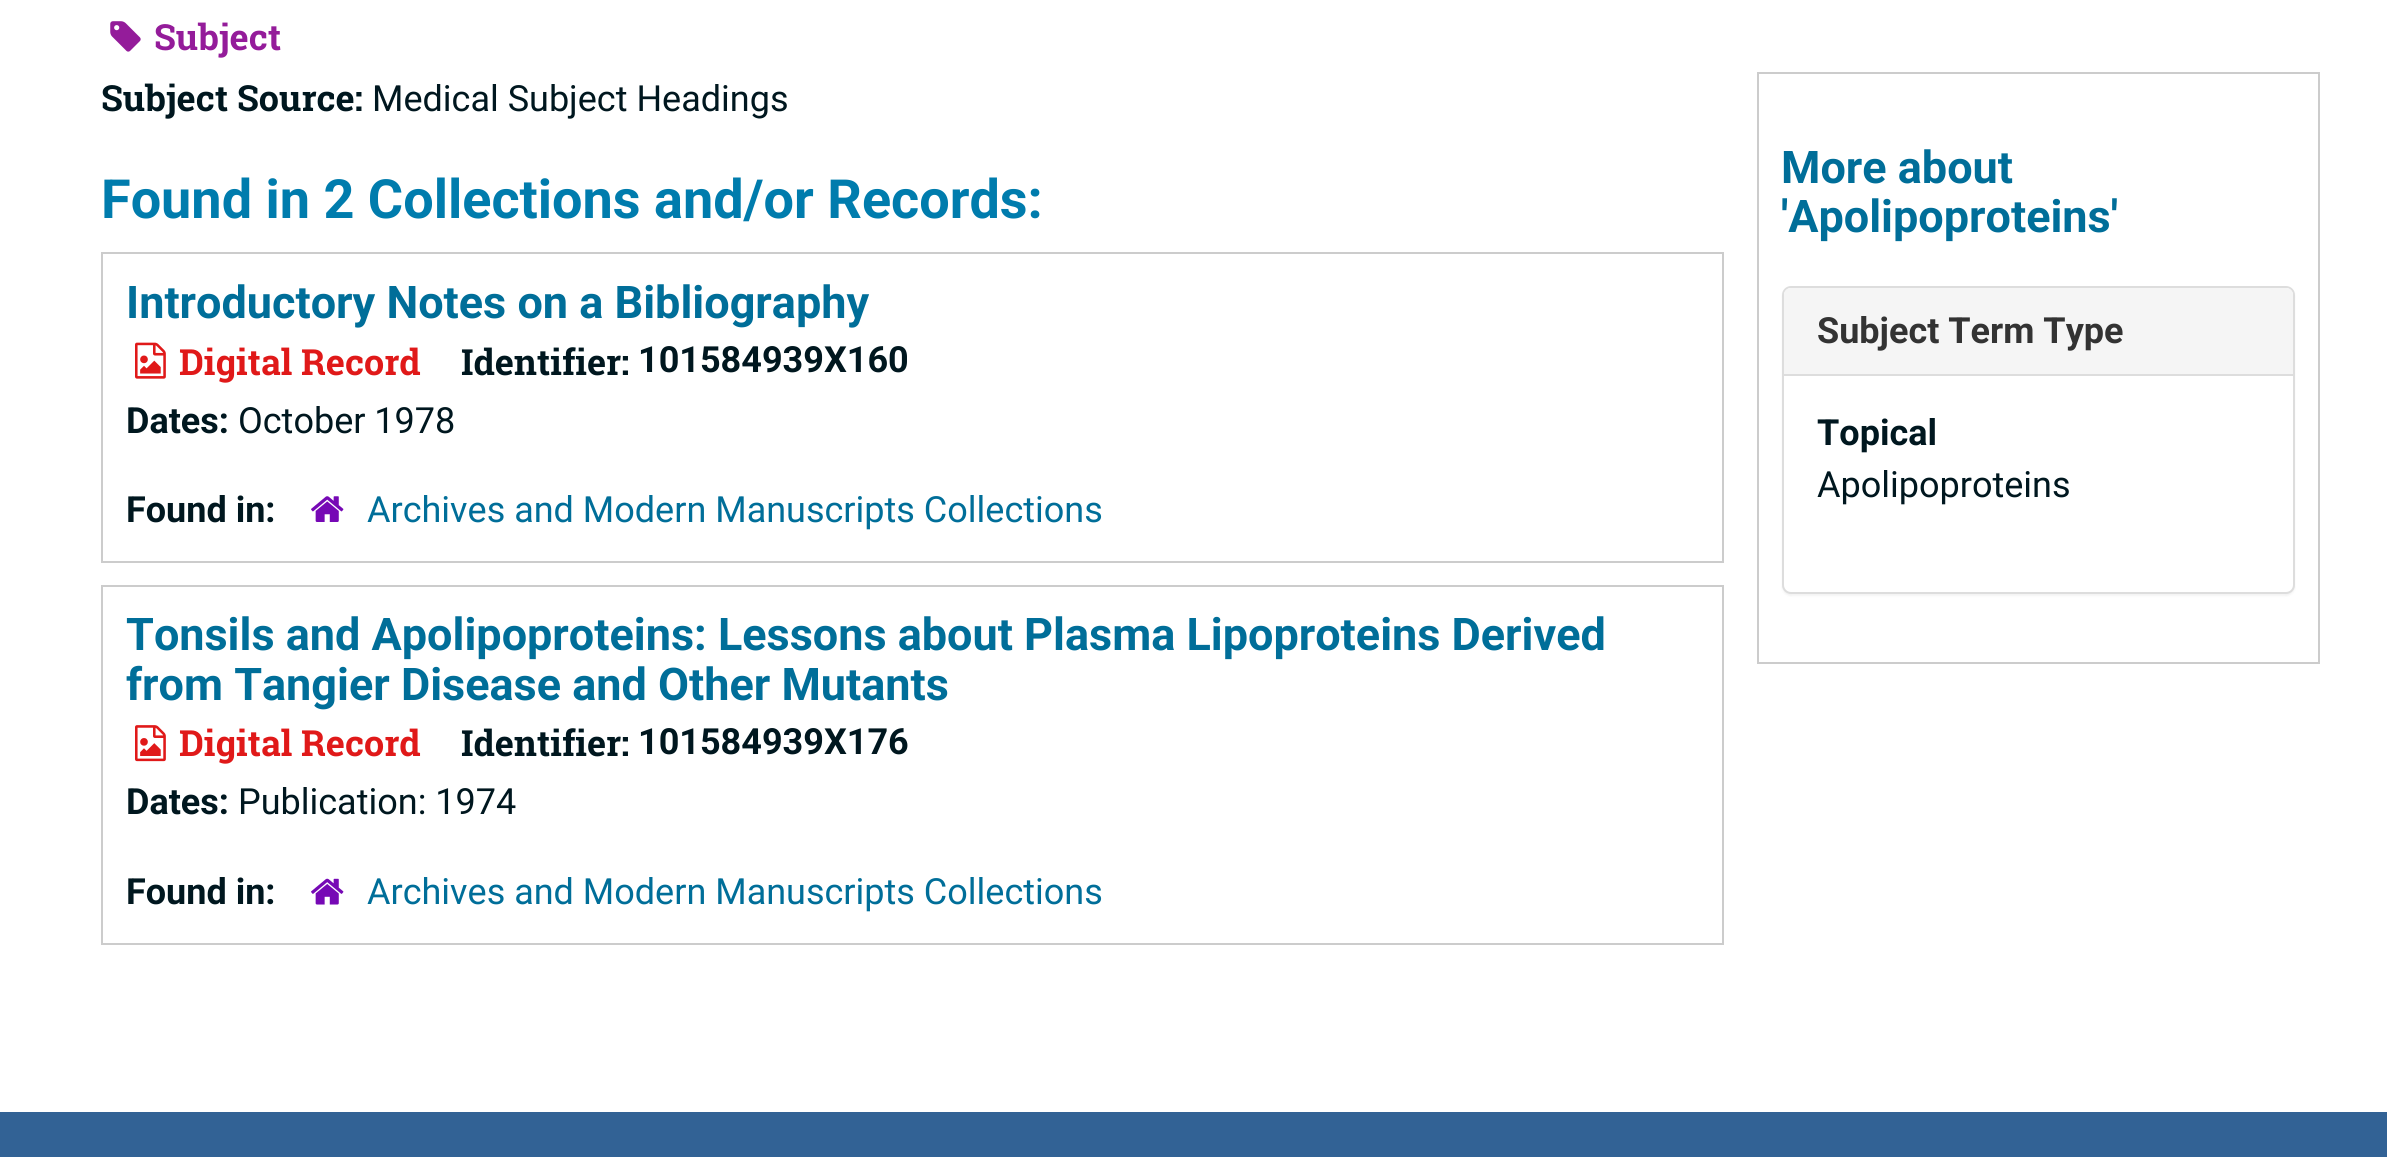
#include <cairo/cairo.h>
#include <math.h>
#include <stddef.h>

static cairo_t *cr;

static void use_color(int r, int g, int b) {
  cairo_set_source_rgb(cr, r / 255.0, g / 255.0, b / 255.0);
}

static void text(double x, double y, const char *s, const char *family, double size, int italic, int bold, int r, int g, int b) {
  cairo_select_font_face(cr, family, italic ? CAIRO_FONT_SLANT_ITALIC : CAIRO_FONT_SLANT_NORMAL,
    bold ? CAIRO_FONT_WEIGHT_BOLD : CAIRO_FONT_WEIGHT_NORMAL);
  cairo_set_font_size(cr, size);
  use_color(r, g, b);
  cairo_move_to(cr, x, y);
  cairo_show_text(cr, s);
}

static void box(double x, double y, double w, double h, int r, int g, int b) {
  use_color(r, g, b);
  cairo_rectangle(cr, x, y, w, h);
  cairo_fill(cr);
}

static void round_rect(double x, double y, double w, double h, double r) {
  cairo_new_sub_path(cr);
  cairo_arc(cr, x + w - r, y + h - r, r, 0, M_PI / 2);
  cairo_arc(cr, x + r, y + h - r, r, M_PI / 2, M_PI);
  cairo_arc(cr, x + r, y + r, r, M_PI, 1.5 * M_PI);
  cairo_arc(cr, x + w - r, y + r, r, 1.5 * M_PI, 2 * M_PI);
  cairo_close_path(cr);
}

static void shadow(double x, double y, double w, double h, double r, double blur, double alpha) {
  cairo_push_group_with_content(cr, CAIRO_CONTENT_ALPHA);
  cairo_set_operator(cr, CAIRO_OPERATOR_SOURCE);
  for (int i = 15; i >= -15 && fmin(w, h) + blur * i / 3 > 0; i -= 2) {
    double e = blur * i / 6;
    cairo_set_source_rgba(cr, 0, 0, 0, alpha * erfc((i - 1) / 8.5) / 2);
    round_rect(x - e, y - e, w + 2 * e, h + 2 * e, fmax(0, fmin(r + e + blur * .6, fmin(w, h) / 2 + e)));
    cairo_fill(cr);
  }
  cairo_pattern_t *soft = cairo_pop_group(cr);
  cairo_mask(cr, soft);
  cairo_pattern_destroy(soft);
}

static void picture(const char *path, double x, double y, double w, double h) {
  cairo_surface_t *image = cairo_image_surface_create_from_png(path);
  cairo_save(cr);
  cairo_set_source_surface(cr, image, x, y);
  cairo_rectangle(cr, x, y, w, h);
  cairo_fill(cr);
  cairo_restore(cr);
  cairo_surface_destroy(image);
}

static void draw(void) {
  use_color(255, 255, 255);
  cairo_paint(cr);
  picture("img_01.png", 110, 21, 31, 31);
  cairo_rectangle(cr, 102, 253, 1621, 309);
  use_color(204, 204, 204);
  cairo_stroke(cr);
  picture("img_02.png", 135, 342, 31, 37);
  picture("img_03.png", 311, 496, 33, 26);
  cairo_rectangle(cr, 102, 586, 1621, 358);
  cairo_stroke(cr);
  picture("img_04.png", 135, 725, 31, 37);
  picture("img_05.png", 311, 878, 33, 27);
  cairo_rectangle(cr, 1758, 73, 561, 590);
  cairo_stroke(cr);
  use_color(0, 0, 0);
  shadow(1782, 288, 513, 308, 9, 1, 0.05);
  use_color(255, 255, 255);
  round_rect(1783, 287, 511, 306, 8);
  cairo_fill_preserve(cr);
  use_color(221, 221, 221);
  cairo_stroke(cr);
  use_color(245, 245, 245);
  cairo_new_path(cr);
  cairo_move_to(cr, 1791, 288);
  cairo_line_to(cr, 2286, 288);
  cairo_curve_to(cr, 2290, 288, 2293, 291, 2293, 295);
  cairo_line_to(cr, 2293, 374);
  cairo_line_to(cr, 1784, 374);
  cairo_line_to(cr, 1784, 295);
  cairo_curve_to(cr, 1784, 291, 1787, 288, 1791, 288);
  cairo_close_path(cr);
  cairo_fill(cr);
  box(1784, 374, 509, 2, 221, 221, 221);
  box(0, 1112, 2387, 45, 50, 98, 149);
  text(154, 50, "Subject", "Roboto Slab", 36, 0, 1, 148, 28, 154);
  text(101, 111, "Subject Source:", "Roboto Slab", 36, 0, 1, 0, 23, 31);
  text(372, 111, "Medical Subject Headings", "Roboto", 36, 0, 0, 0, 23, 31);
  text(101, 218, "Found in 2 Collections and/or Records:", "Roboto", 54, 0, 1, 0, 124, 173);
  text(126, 318, "Introductory Notes on a Bibliography", "Roboto", 45, 0, 1, 0, 110, 153);
  text(179, 375, "Digital Record", "Roboto Slab", 36, 0, 1, 224, 25, 25);
  text(461, 375, "Identifier:", "Roboto Slab", 36, 0, 1, 0, 23, 31);
  text(638, 372, "101584939X160", "Roboto", 36, 0, 1, 0, 23, 31);
  text(126, 433, "Dates:", "Roboto", 36, 0, 1, 0, 23, 31);
  text(238, 433, "October 1978", "Roboto", 36, 0, 0, 0, 23, 31);
  text(126, 522, "Found in:", "Roboto", 36, 0, 1, 0, 23, 31);
  text(367, 522, "Archives and Modern Manuscripts Collections", "Roboto", 36, 0, 0, 0, 110, 153);
  text(126, 650, "Tonsils and Apolipoproteins: Lessons about Plasma Lipoproteins Derived", "Roboto", 45, 0, 1, 0, 110, 153);
  text(126, 700, "from Tangier Disease and Other Mutants", "Roboto", 45, 0, 1, 0, 110, 153);
  text(179, 756, "Digital Record", "Roboto Slab", 36, 0, 1, 224, 25, 25);
  text(461, 756, "Identifier:", "Roboto Slab", 36, 0, 1, 0, 23, 31);
  text(638, 754, "101584939X176", "Roboto", 36, 0, 1, 0, 23, 31);
  text(126, 814, "Dates:", "Roboto", 36, 0, 1, 0, 23, 31);
  text(238, 814, "Publication: 1974", "Roboto", 36, 0, 0, 0, 23, 31);
  text(126, 904, "Found in:", "Roboto", 36, 0, 1, 0, 23, 31);
  text(367, 904, "Archives and Modern Manuscripts Collections", "Roboto", 36, 0, 0, 0, 110, 153);
  text(1781, 183, "More about", "Roboto", 45, 0, 1, 0, 110, 153);
  text(1781, 232, "'Apolipoproteins'", "Roboto", 45, 0, 1, 0, 110, 153);
  text(1817, 343, "Subject Term Type", "Roboto", 36, 0, 1, 51, 51, 51);
  text(1817, 445, "Topical", "Roboto", 36, 0, 1, 0, 23, 31);
  text(1817, 497, "Apolipoproteins", "Roboto", 36, 0, 0, 0, 23, 31);
}

int main(void) {
  cairo_surface_t *surface = cairo_image_surface_create(CAIRO_FORMAT_RGB24, 2387, 1157);
  cr = cairo_create(surface);
  cairo_font_options_t *options = cairo_font_options_create();
  cairo_font_options_set_hint_metrics(options, CAIRO_HINT_METRICS_OFF);
  cairo_font_options_set_hint_style(options, CAIRO_HINT_STYLE_NONE);
  cairo_set_font_options(cr, options);
  cairo_set_miter_limit(cr, 4);
  draw();
  cairo_surface_write_to_png(surface, "out.png");
  cairo_font_options_destroy(options);
  cairo_destroy(cr);
  cairo_surface_destroy(surface);
  return 0;
}
